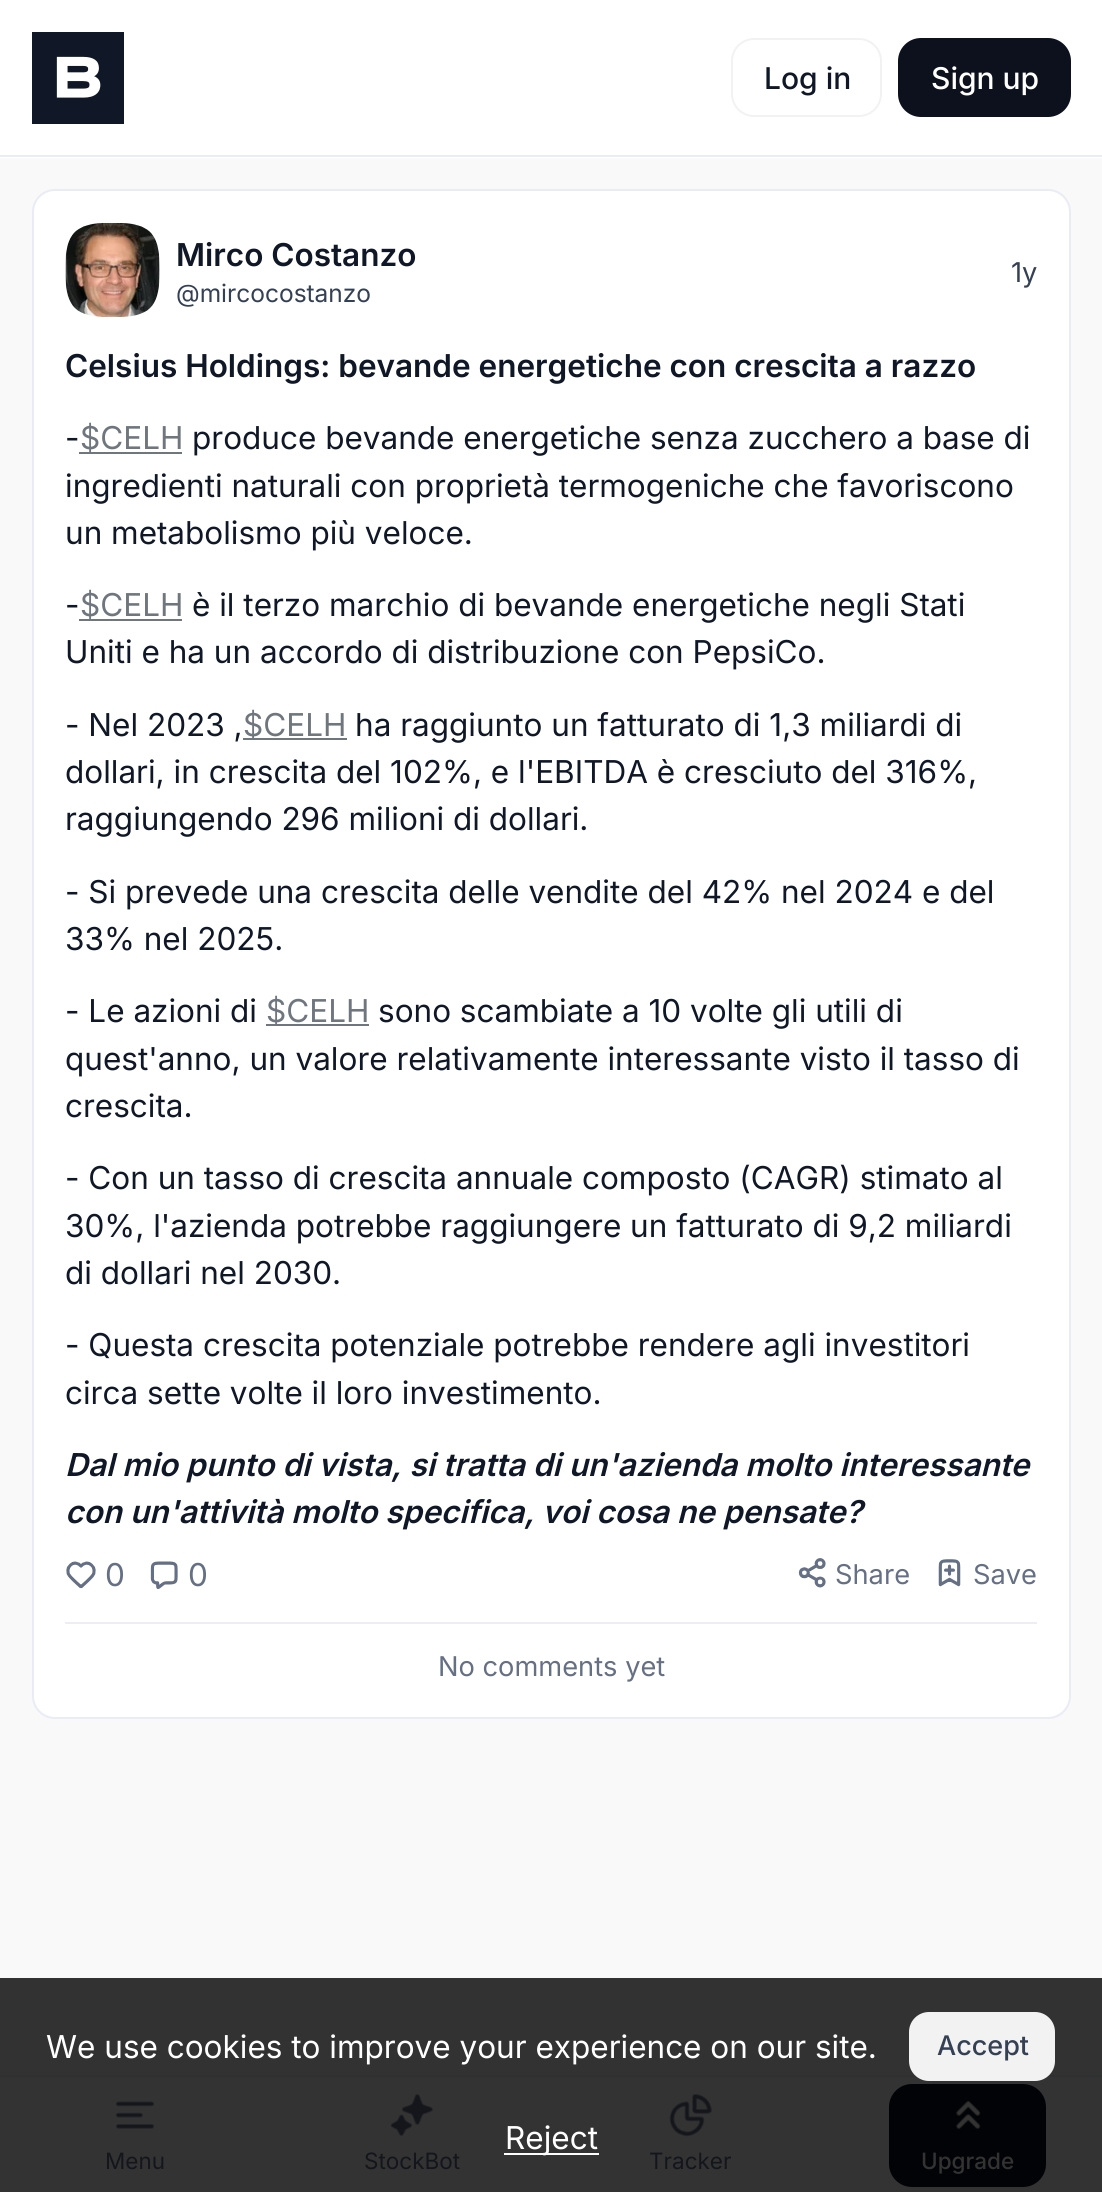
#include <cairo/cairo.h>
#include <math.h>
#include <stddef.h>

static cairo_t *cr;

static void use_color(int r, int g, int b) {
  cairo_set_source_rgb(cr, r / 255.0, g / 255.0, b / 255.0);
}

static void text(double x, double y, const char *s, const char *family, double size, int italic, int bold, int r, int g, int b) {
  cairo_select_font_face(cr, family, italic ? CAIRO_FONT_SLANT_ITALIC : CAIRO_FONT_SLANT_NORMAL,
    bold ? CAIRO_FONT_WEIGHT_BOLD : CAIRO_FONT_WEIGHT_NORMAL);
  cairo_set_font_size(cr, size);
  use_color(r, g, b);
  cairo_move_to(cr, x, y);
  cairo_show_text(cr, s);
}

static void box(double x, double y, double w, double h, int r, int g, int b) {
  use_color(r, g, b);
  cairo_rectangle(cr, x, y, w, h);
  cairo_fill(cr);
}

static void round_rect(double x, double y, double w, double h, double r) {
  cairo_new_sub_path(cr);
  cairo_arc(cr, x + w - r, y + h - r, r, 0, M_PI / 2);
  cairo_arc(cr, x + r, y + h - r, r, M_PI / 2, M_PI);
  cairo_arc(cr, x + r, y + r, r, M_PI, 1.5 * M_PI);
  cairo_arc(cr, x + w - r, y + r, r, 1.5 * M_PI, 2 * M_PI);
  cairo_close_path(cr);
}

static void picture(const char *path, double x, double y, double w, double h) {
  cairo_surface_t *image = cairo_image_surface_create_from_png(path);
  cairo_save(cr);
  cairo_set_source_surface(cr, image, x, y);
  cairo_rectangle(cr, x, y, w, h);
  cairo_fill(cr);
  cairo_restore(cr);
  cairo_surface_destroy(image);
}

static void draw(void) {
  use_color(249, 249, 249);
  cairo_paint(cr);
  box(0, 1978, 1102, 97, 50, 50, 50);
  box(0, 0, 1102, 158, 255, 255, 255);
  box(0, 155, 1102, 2, 233, 236, 244);
  picture("img_01.png", 32, 32, 92, 92);
  round_rect(732, 39, 149, 77, 22);
  use_color(242, 242, 242);
  cairo_stroke(cr);
  use_color(12, 17, 29);
  round_rect(899, 39, 171, 77, 22);
  cairo_fill_preserve(cr);
  cairo_stroke(cr);
  use_color(255, 255, 255);
  round_rect(33, 190, 1037, 1528, 22);
  cairo_fill_preserve(cr);
  use_color(233, 236, 244);
  cairo_stroke(cr);
  picture("img_02.png", 65, 223, 95, 94);
  box(79, 452, 103, 2, 111, 118, 126);
  box(79, 619, 103, 2, 111, 118, 126);
  box(243, 738, 104, 2, 111, 118, 126);
  box(266, 1024, 103, 2, 111, 118, 126);
  picture("img_03.png", 66, 1561, 30, 28);
  picture("img_04.png", 150, 1561, 28, 28);
  picture("img_05.png", 798, 1558, 28, 30);
  picture("img_06.png", 938, 1559, 23, 28);
  box(65, 1622, 972, 2, 236, 238, 245);
  box(0, 2077, 1102, 115, 51, 51, 51);
  box(0, 2075, 1102, 2, 47, 48, 49);
  use_color(242, 242, 242);
  round_rect(910, 2013, 144, 67, 19);
  cairo_fill_preserve(cr);
  cairo_stroke(cr);
  box(504, 2153, 95, 2, 255, 255, 255);
  picture("img_07.png", 115, 2101, 40, 28);
  picture("img_08.png", 390, 2094, 43, 43);
  picture("img_09.png", 669, 2094, 43, 43);
  use_color(2, 3, 6);
  round_rect(889, 2084, 157, 103, 23);
  cairo_fill(cr);
  picture("img_10.png", 956, 2100, 25, 30);
  text(764, 89, "Log in", "Inter Medium", 30, 0, 0, 16, 24, 40);
  text(931, 89, "Sign up", "Inter Medium", 30, 0, 0, 255, 255, 255);
  text(176, 266, "Mirco Costanzo", "Inter SemiBold", 31.5, 0, 0, 16, 24, 40);
  text(176, 302, "@mircocostanzo", "Inter", 24.5, 0, 0, 52, 64, 84);
  text(1011, 282, "1y", "Inter", 27.25, 0, 0, 52, 64, 84);
  text(65, 377, "Celsius Holdings: bevande energetiche con crescita a razzo", "Inter SemiBold", 31.5, 0, 0, 16, 24, 40);
  text(65, 449, "-", "Inter", 31.5, 0, 0, 16, 24, 40);
  text(80, 449, "$CELH", "Inter", 31.5, 0, 0, 111, 118, 126);
  text(192, 449, "produce bevande energetiche senza zucchero a base di", "Inter", 31.5, 0, 0, 16, 24, 40);
  text(65, 497, "ingredienti naturali con proprietà termogeniche che favoriscono", "Inter", 31.5, 0, 0, 16, 24, 40);
  text(65, 544, "un metabolismo più veloce.", "Inter", 31.5, 0, 0, 16, 24, 40);
  text(65, 616, "-", "Inter", 31.5, 0, 0, 16, 24, 40);
  text(80, 616, "$CELH", "Inter", 31.5, 0, 0, 111, 118, 126);
  text(192, 616, "è il terzo marchio di bevande energetiche negli Stati", "Inter", 31.5, 0, 0, 16, 24, 40);
  text(65, 663, "Uniti e ha un accordo di distribuzione con PepsiCo.", "Inter", 31.5, 0, 0, 16, 24, 40);
  text(65, 736, "- Nel 2023 ,", "Inter", 31.5, 0, 0, 16, 24, 40);
  text(243, 736, "$CELH", "Inter", 31.5, 0, 0, 111, 118, 126);
  text(355, 736, "ha raggiunto un fatturato di 1,3 miliardi di", "Inter", 31.5, 0, 0, 16, 24, 40);
  text(65, 783, "dollari, in crescita del 102%, e l'EBITDA è cresciuto del 316%,", "Inter", 31.5, 0, 0, 16, 24, 40);
  text(65, 830, "raggiungendo 296 milioni di dollari.", "Inter", 31.5, 0, 0, 16, 24, 40);
  text(65, 903, "- Si prevede una crescita delle vendite del 42% nel 2024 e del", "Inter", 31.5, 0, 0, 16, 24, 40);
  text(65, 950, "33% nel 2025.", "Inter", 31.5, 0, 0, 16, 24, 40);
  text(65, 1022, "- Le azioni di", "Inter", 31.5, 0, 0, 16, 24, 40);
  text(266, 1022, "$CELH", "Inter", 31.5, 0, 0, 111, 118, 126);
  text(378, 1022, "sono scambiate a 10 volte gli utili di", "Inter", 31.5, 0, 0, 16, 24, 40);
  text(65, 1070, "quest'anno, un valore relativamente interessante visto il tasso di", "Inter", 31.5, 0, 0, 16, 24, 40);
  text(65, 1117, "crescita.", "Inter", 31.5, 0, 0, 16, 24, 40);
  text(65, 1189, "- Con un tasso di crescita annuale composto (CAGR) stimato al", "Inter", 31.5, 0, 0, 16, 24, 40);
  text(65, 1237, "30%, l'azienda potrebbe raggiungere un fatturato di 9,2 miliardi", "Inter", 31.5, 0, 0, 16, 24, 40);
  text(65, 1284, "di dollari nel 2030.", "Inter", 31.5, 0, 0, 16, 24, 40);
  text(65, 1356, "- Questa crescita potenziale potrebbe rendere agli investitori", "Inter", 31.5, 0, 0, 16, 24, 40);
  text(65, 1404, "circa sette volte il loro investimento.", "Inter", 31.5, 0, 0, 16, 24, 40);
  text(65, 1476, "Dal mio punto di vista, si tratta di un'azienda molto interessante", "Inter SemiBold", 31.5, 1, 0, 16, 24, 40);
  text(65, 1523, "con un'attività molto specifica, voi cosa ne pensate?", "Inter SemiBold", 31.5, 1, 0, 16, 24, 40);
  text(105, 1586, "0", "Inter", 31.5, 0, 0, 102, 112, 133);
  text(188, 1586, "0", "Inter", 31.5, 0, 0, 102, 112, 133);
  text(835, 1584, "Share", "Inter", 27.25, 0, 0, 102, 112, 133);
  text(973, 1584, "Save", "Inter", 27.25, 0, 0, 102, 112, 133);
  text(438, 1676, "No comments yet", "Inter", 27.25, 0, 0, 102, 112, 133);
  text(46, 2058, "We use cookies to improve your experience on our site.", "Inter", 31.5, 0, 0, 255, 255, 255);
  text(937, 2055, "Accept", "Inter Medium", 27, 0, 0, 52, 64, 84);
  text(505, 2149, "Reject", "Inter", 31.5, 0, 0, 255, 255, 255);
  text(105, 2169, "Menu", "Inter", 22.5, 0, 0, 20, 22, 27);
  text(364, 2169, "StockBot", "Inter", 22.5, 0, 0, 20, 22, 27);
  text(649, 2169, "Tracker", "Inter", 22.5, 0, 0, 20, 22, 27);
  text(921, 2169, "Upgrade", "Inter Medium", 22.5, 0, 0, 51, 51, 51);
}

int main(void) {
  cairo_surface_t *surface = cairo_image_surface_create(CAIRO_FORMAT_RGB24, 1102, 2192);
  cr = cairo_create(surface);
  cairo_font_options_t *options = cairo_font_options_create();
  cairo_font_options_set_hint_metrics(options, CAIRO_HINT_METRICS_OFF);
  cairo_font_options_set_hint_style(options, CAIRO_HINT_STYLE_NONE);
  cairo_set_font_options(cr, options);
  cairo_set_miter_limit(cr, 4);
  draw();
  cairo_surface_write_to_png(surface, "out.png");
  cairo_font_options_destroy(options);
  cairo_destroy(cr);
  cairo_surface_destroy(surface);
  return 0;
}
